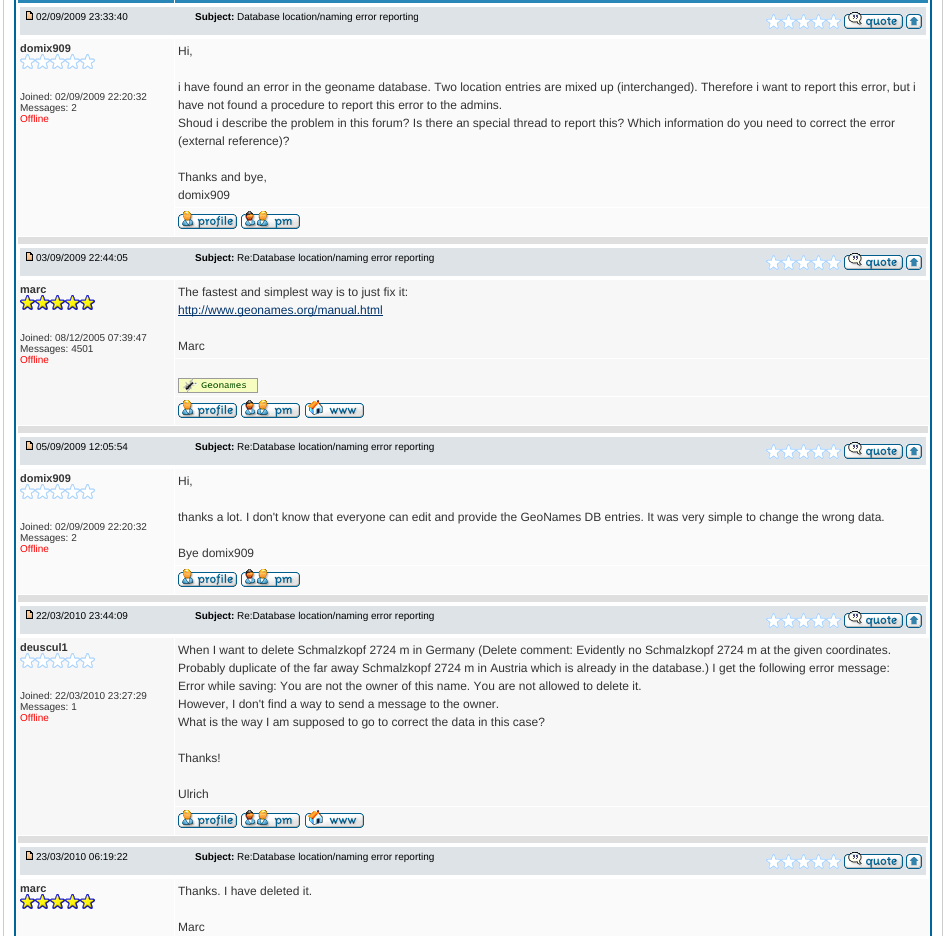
#include <cairo/cairo.h>
#include <math.h>
#include <stddef.h>

static cairo_t *cr;

static void use_color(int r, int g, int b) {
  cairo_set_source_rgb(cr, r / 255.0, g / 255.0, b / 255.0);
}

static void text(double x, double y, const char *s, const char *family, double size, int italic, int bold, int r, int g, int b) {
  cairo_select_font_face(cr, family, italic ? CAIRO_FONT_SLANT_ITALIC : CAIRO_FONT_SLANT_NORMAL,
    bold ? CAIRO_FONT_WEIGHT_BOLD : CAIRO_FONT_WEIGHT_NORMAL);
  cairo_set_font_size(cr, size);
  use_color(r, g, b);
  cairo_move_to(cr, x, y);
  cairo_show_text(cr, s);
}

static void box(double x, double y, double w, double h, int r, int g, int b) {
  use_color(r, g, b);
  cairo_rectangle(cr, x, y, w, h);
  cairo_fill(cr);
}

static void picture(const char *path, double x, double y, double w, double h) {
  cairo_surface_t *image = cairo_image_surface_create_from_png(path);
  cairo_save(cr);
  cairo_set_source_surface(cr, image, x, y);
  cairo_rectangle(cr, x, y, w, h);
  cairo_fill(cr);
  cairo_restore(cr);
  cairo_surface_destroy(image);
}

static void draw(void) {
  use_color(255, 255, 255);
  cairo_paint(cr);
  cairo_rectangle(cr, 3.5, -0.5, 939, 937);
  use_color(204, 204, 204);
  cairo_set_line_width(cr, 1);
  cairo_stroke(cr);
  cairo_rectangle(cr, 15, -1, 916, 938);
  use_color(0, 102, 153);
  cairo_set_line_width(cr, 2);
  cairo_stroke(cr);
  box(17, 0, 157, 3, 40, 135, 182);
  box(17, 0, 1, 3, 255, 255, 255);
  box(175, 0, 754, 3, 40, 135, 182);
  box(928, 0, 1, 3, 255, 255, 255);
  box(20, 7, 906, 28, 222, 227, 231);
  picture("img_01.png", 26, 11, 7, 9);
  picture("img_02.png", 766, 14, 15, 15);
  picture("img_02.png", 781, 14, 15, 15);
  picture("img_02.png", 796, 14, 15, 15);
  picture("img_02.png", 811, 14, 15, 15);
  picture("img_02.png", 826, 14, 15, 15);
  picture("img_03.png", 844, 12, 59, 17);
  picture("img_04.png", 906, 14, 16, 15);
  box(17, 39, 157, 197, 250, 250, 250);
  picture("img_05.png", 20, 54, 15, 15);
  picture("img_05.png", 35, 54, 15, 15);
  picture("img_05.png", 50, 54, 15, 15);
  picture("img_05.png", 65, 54, 15, 15);
  picture("img_05.png", 80, 54, 15, 15);
  box(175, 39, 754, 168, 250, 250, 250);
  box(175, 208, 754, 28, 250, 250, 250);
  picture("img_06.png", 178, 211, 59, 18);
  picture("img_07.png", 241, 211, 59, 18);
  box(18, 237, 910, 7, 223, 223, 223);
  box(20, 248, 906, 28, 222, 227, 231);
  picture("img_01.png", 26, 252, 7, 9);
  picture("img_02.png", 766, 255, 15, 15);
  picture("img_02.png", 781, 255, 15, 15);
  picture("img_02.png", 796, 255, 15, 15);
  picture("img_02.png", 811, 255, 15, 15);
  picture("img_02.png", 826, 255, 15, 15);
  picture("img_03.png", 844, 253, 59, 17);
  picture("img_04.png", 906, 255, 16, 15);
  box(17, 280, 157, 145, 247, 247, 248);
  picture("img_08.png", 20, 295, 15, 15);
  picture("img_08.png", 35, 295, 15, 15);
  picture("img_08.png", 50, 295, 15, 15);
  picture("img_08.png", 65, 295, 15, 15);
  picture("img_08.png", 80, 295, 15, 15);
  box(175, 280, 754, 78, 247, 247, 248);
  box(178, 315, 205, 1, 1, 51, 107);
  box(175, 359, 754, 37, 247, 247, 248);
  picture("img_09.png", 178, 378, 80, 15);
  box(175, 397, 754, 28, 247, 247, 248);
  picture("img_10.png", 178, 400, 59, 18);
  picture("img_11.png", 241, 400, 59, 18);
  picture("img_12.png", 305, 400, 59, 18);
  box(18, 426, 910, 7, 223, 223, 223);
  box(20, 437, 906, 28, 222, 227, 231);
  picture("img_01.png", 26, 441, 7, 9);
  picture("img_02.png", 766, 444, 15, 15);
  picture("img_02.png", 781, 444, 15, 15);
  picture("img_02.png", 796, 444, 15, 15);
  picture("img_02.png", 811, 444, 15, 15);
  picture("img_02.png", 826, 444, 15, 15);
  picture("img_03.png", 844, 442, 59, 17);
  picture("img_04.png", 906, 444, 16, 15);
  box(17, 469, 157, 125, 250, 250, 250);
  picture("img_05.png", 20, 484, 15, 15);
  picture("img_05.png", 35, 484, 15, 15);
  picture("img_05.png", 50, 484, 15, 15);
  picture("img_05.png", 65, 484, 15, 15);
  picture("img_05.png", 80, 484, 15, 15);
  box(175, 469, 754, 96, 250, 250, 250);
  box(175, 566, 754, 28, 250, 250, 250);
  picture("img_06.png", 178, 569, 59, 18);
  picture("img_07.png", 241, 569, 59, 18);
  box(18, 595, 910, 7, 223, 223, 223);
  box(20, 606, 906, 28, 222, 227, 231);
  picture("img_01.png", 26, 610, 7, 9);
  picture("img_02.png", 766, 613, 15, 15);
  picture("img_02.png", 781, 613, 15, 15);
  picture("img_02.png", 796, 613, 15, 15);
  picture("img_02.png", 811, 613, 15, 15);
  picture("img_02.png", 826, 613, 15, 15);
  picture("img_03.png", 844, 611, 59, 17);
  picture("img_04.png", 906, 613, 16, 15);
  box(17, 638, 157, 197, 247, 247, 248);
  picture("img_13.png", 20, 653, 15, 15);
  picture("img_13.png", 35, 653, 15, 15);
  picture("img_13.png", 50, 653, 15, 15);
  picture("img_13.png", 65, 653, 15, 15);
  picture("img_13.png", 80, 653, 15, 15);
  box(175, 638, 754, 168, 247, 247, 248);
  box(175, 807, 754, 28, 247, 247, 248);
  picture("img_10.png", 178, 810, 59, 18);
  picture("img_11.png", 241, 810, 59, 18);
  picture("img_12.png", 305, 810, 59, 18);
  box(18, 836, 910, 7, 223, 223, 223);
  box(20, 847, 906, 28, 222, 227, 231);
  picture("img_01.png", 26, 851, 7, 9);
  picture("img_02.png", 766, 854, 15, 15);
  picture("img_02.png", 781, 854, 15, 15);
  picture("img_02.png", 796, 854, 15, 15);
  picture("img_02.png", 811, 854, 15, 15);
  picture("img_02.png", 826, 854, 15, 15);
  picture("img_03.png", 844, 852, 59, 17);
  picture("img_04.png", 906, 854, 16, 15);
  box(17, 879, 157, 57, 250, 250, 250);
  picture("img_14.png", 20, 894, 15, 15);
  picture("img_14.png", 35, 894, 15, 15);
  picture("img_14.png", 50, 894, 15, 15);
  picture("img_14.png", 65, 894, 15, 15);
  picture("img_14.png", 80, 894, 15, 15);
  box(175, 879, 754, 57, 250, 250, 250);
  text(36, 20, "02/09/2009 23:33:40", "Liberation Sans", 10, 0, 0, 0, 0, 0);
  text(195, 20, "Subject:", "Liberation Sans", 10, 0, 1, 0, 0, 0);
  text(237, 20, "Database location/naming error reporting", "Liberation Sans", 10, 0, 0, 0, 0, 0);
  text(20, 52, "domix909", "Liberation Sans", 11, 0, 1, 51, 51, 51);
  text(20, 100, "Joined: 02/09/2009 22:20:32", "Liberation Sans", 10, 0, 0, 51, 51, 51);
  text(20, 111, "Messages: 2", "Liberation Sans", 10, 0, 0, 51, 51, 51);
  text(20, 122, "Offline", "Liberation Sans", 10, 0, 0, 255, 0, 0);
  text(178, 55, "Hi,", "Liberation Sans", 12, 0, 0, 51, 51, 51);
  text(178, 91, "i have found an error in the geoname database. Two location entries are mixed up (interchanged). Therefore i want to report this error, but i", "Liberation Sans", 12, 0, 0, 51, 51, 51);
  text(178, 109, "have not found a procedure to report this error to the admins.", "Liberation Sans", 12, 0, 0, 51, 51, 51);
  text(178, 127, "Shoud i describe the problem in this forum? Is there an special thread to report this? Which information do you need to correct the error", "Liberation Sans", 12, 0, 0, 51, 51, 51);
  text(178, 145, "(external reference)?", "Liberation Sans", 12, 0, 0, 51, 51, 51);
  text(178, 181, "Thanks and bye,", "Liberation Sans", 12, 0, 0, 51, 51, 51);
  text(178, 199, "domix909", "Liberation Sans", 12, 0, 0, 51, 51, 51);
  text(36, 261, "03/09/2009 22:44:05", "Liberation Sans", 10, 0, 0, 0, 0, 0);
  text(195, 261, "Subject:", "Liberation Sans", 10, 0, 1, 0, 0, 0);
  text(237, 261, "Re:Database location/naming error reporting", "Liberation Sans", 10, 0, 0, 0, 0, 0);
  text(20, 293, "marc", "Liberation Sans", 11, 0, 1, 51, 51, 51);
  text(20, 341, "Joined: 08/12/2005 07:39:47", "Liberation Sans", 10, 0, 0, 51, 51, 51);
  text(20, 352, "Messages: 4501", "Liberation Sans", 10, 0, 0, 51, 51, 51);
  text(20, 363, "Offline", "Liberation Sans", 10, 0, 0, 255, 0, 0);
  text(178, 296, "The fastest and simplest way is to just fix it:", "Liberation Sans", 12, 0, 0, 51, 51, 51);
  text(178, 314, "http://www.geonames.org/manual.html", "Liberation Sans", 12, 0, 0, 1, 51, 107);
  text(178, 350, "Marc", "Liberation Sans", 12, 0, 0, 51, 51, 51);
  text(36, 450, "05/09/2009 12:05:54", "Liberation Sans", 10, 0, 0, 0, 0, 0);
  text(195, 450, "Subject:", "Liberation Sans", 10, 0, 1, 0, 0, 0);
  text(237, 450, "Re:Database location/naming error reporting", "Liberation Sans", 10, 0, 0, 0, 0, 0);
  text(20, 482, "domix909", "Liberation Sans", 11, 0, 1, 51, 51, 51);
  text(20, 530, "Joined: 02/09/2009 22:20:32", "Liberation Sans", 10, 0, 0, 51, 51, 51);
  text(20, 541, "Messages: 2", "Liberation Sans", 10, 0, 0, 51, 51, 51);
  text(20, 552, "Offline", "Liberation Sans", 10, 0, 0, 255, 0, 0);
  text(178, 485, "Hi,", "Liberation Sans", 12, 0, 0, 51, 51, 51);
  text(178, 521, "thanks a lot. I don't know that everyone can edit and provide the GeoNames DB entries. It was very simple to change the wrong data.", "Liberation Sans", 12, 0, 0, 51, 51, 51);
  text(178, 557, "Bye domix909", "Liberation Sans", 12, 0, 0, 51, 51, 51);
  text(36, 619, "22/03/2010 23:44:09", "Liberation Sans", 10, 0, 0, 0, 0, 0);
  text(195, 619, "Subject:", "Liberation Sans", 10, 0, 1, 0, 0, 0);
  text(237, 619, "Re:Database location/naming error reporting", "Liberation Sans", 10, 0, 0, 0, 0, 0);
  text(20, 651, "deuscul1", "Liberation Sans", 11, 0, 1, 51, 51, 51);
  text(20, 699, "Joined: 22/03/2010 23:27:29", "Liberation Sans", 10, 0, 0, 51, 51, 51);
  text(20, 710, "Messages: 1", "Liberation Sans", 10, 0, 0, 51, 51, 51);
  text(20, 721, "Offline", "Liberation Sans", 10, 0, 0, 255, 0, 0);
  text(178, 654, "When I want to delete Schmalzkopf 2724 m in Germany (Delete comment: Evidently no Schmalzkopf 2724 m at the given coordinates.", "Liberation Sans", 12, 0, 0, 51, 51, 51);
  text(178, 672, "Probably duplicate of the far away Schmalzkopf 2724 m in Austria which is already in the database.) I get the following error message:", "Liberation Sans", 12, 0, 0, 51, 51, 51);
  text(178, 690, "Error while saving: You are not the owner of this name. You are not allowed to delete it.", "Liberation Sans", 12, 0, 0, 51, 51, 51);
  text(178, 708, "However, I don't find a way to send a message to the owner.", "Liberation Sans", 12, 0, 0, 51, 51, 51);
  text(178, 726, "What is the way I am supposed to go to correct the data in this case?", "Liberation Sans", 12, 0, 0, 51, 51, 51);
  text(178, 762, "Thanks!", "Liberation Sans", 12, 0, 0, 51, 51, 51);
  text(178, 798, "Ulrich", "Liberation Sans", 12, 0, 0, 51, 51, 51);
  text(36, 860, "23/03/2010 06:19:22", "Liberation Sans", 10, 0, 0, 0, 0, 0);
  text(195, 860, "Subject:", "Liberation Sans", 10, 0, 1, 0, 0, 0);
  text(237, 860, "Re:Database location/naming error reporting", "Liberation Sans", 10, 0, 0, 0, 0, 0);
  text(20, 892, "marc", "Liberation Sans", 11, 0, 1, 51, 51, 51);
  text(178, 895, "Thanks. I have deleted it.", "Liberation Sans", 12, 0, 0, 51, 51, 51);
  text(178, 931, "Marc", "Liberation Sans", 12, 0, 0, 51, 51, 51);
}

int main(void) {
  cairo_surface_t *surface = cairo_image_surface_create(CAIRO_FORMAT_RGB24, 946, 936);
  cr = cairo_create(surface);
  cairo_font_options_t *options = cairo_font_options_create();
  cairo_font_options_set_hint_metrics(options, CAIRO_HINT_METRICS_OFF);
  cairo_font_options_set_hint_style(options, CAIRO_HINT_STYLE_NONE);
  cairo_set_font_options(cr, options);
  cairo_set_miter_limit(cr, 4);
  draw();
  cairo_surface_write_to_png(surface, "out.png");
  cairo_font_options_destroy(options);
  cairo_destroy(cr);
  cairo_surface_destroy(surface);
  return 0;
}
